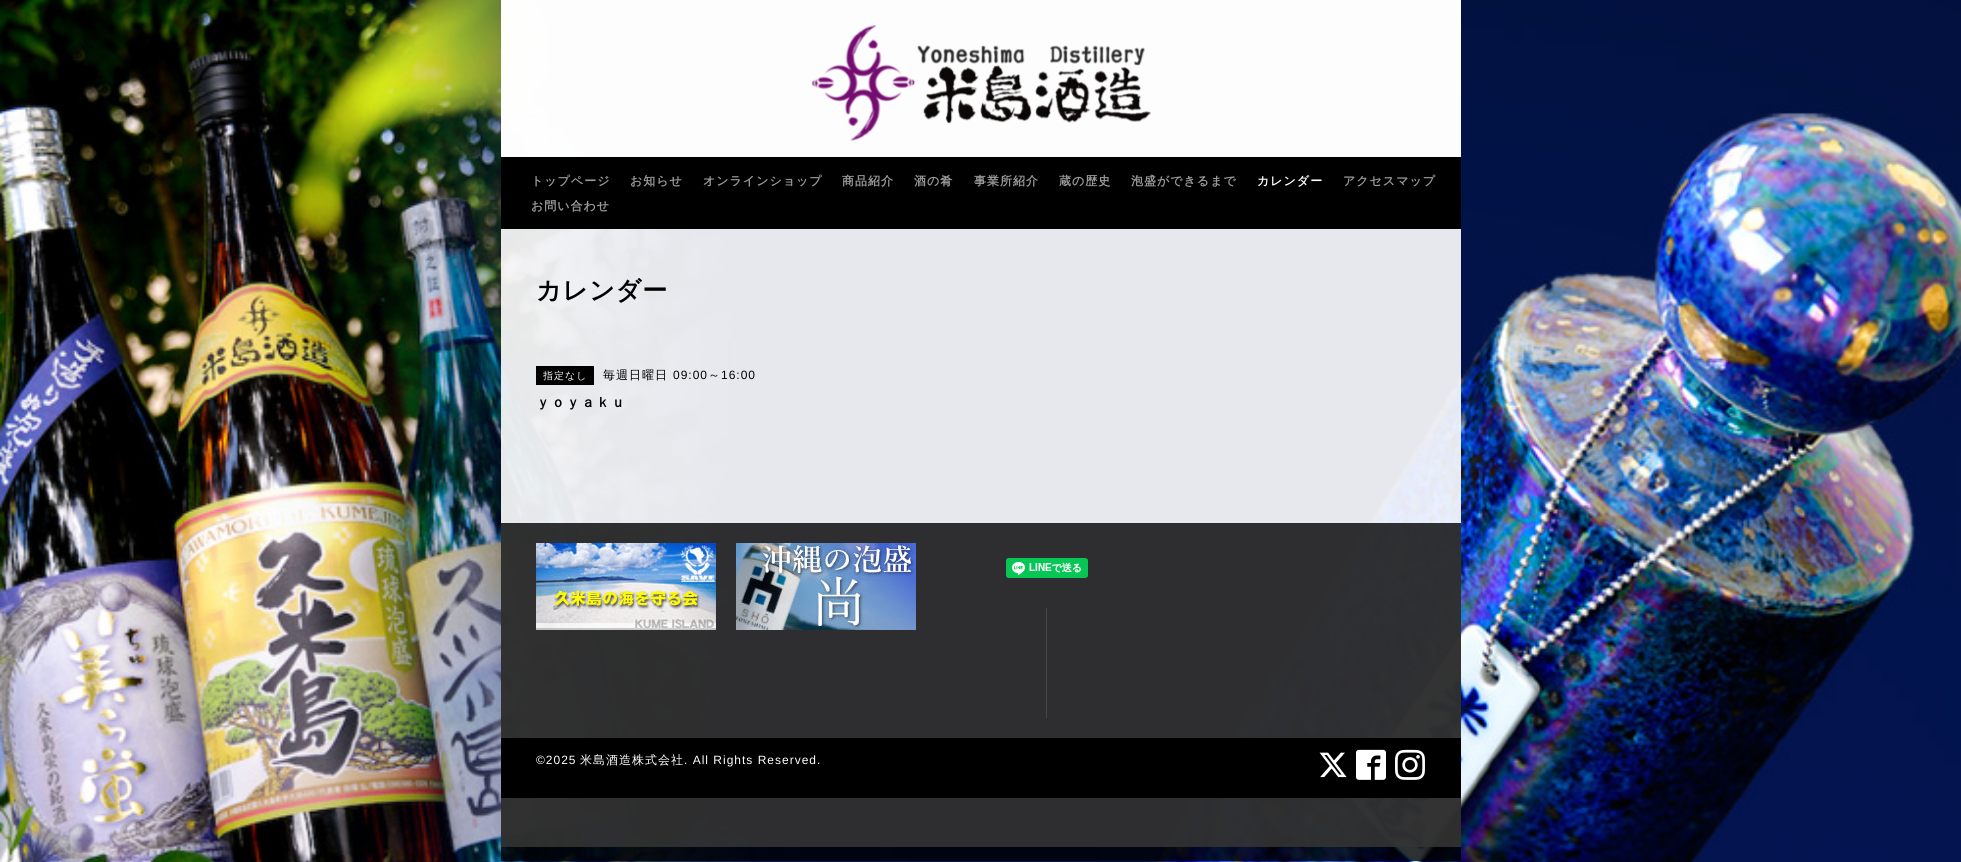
#include <cairo/cairo.h>
#include <math.h>
#include <stddef.h>

static cairo_t *cr;

static void use_color(int r, int g, int b) {
  cairo_set_source_rgb(cr, r / 255.0, g / 255.0, b / 255.0);
}

static void spaced_text(double x, double y, const char *s, double letter, double word) {
  cairo_move_to(cr, x, y);
  while (*s) {
    char ch[5] = {0};
    int n = 0;
    do ch[n++] = *s++; while ((*s & 0xC0) == 0x80);
    cairo_show_text(cr, ch);
    cairo_rel_move_to(cr, letter + word * (*ch == ' '), 0);
  }
}

static void box(double x, double y, double w, double h, int r, int g, int b) {
  use_color(r, g, b);
  cairo_rectangle(cr, x, y, w, h);
  cairo_fill(cr);
}

static void picture(const char *path, double x, double y, double w, double h) {
  cairo_surface_t *image = cairo_image_surface_create_from_png(path);
  cairo_save(cr);
  cairo_set_source_surface(cr, image, x, y);
  cairo_rectangle(cr, x, y, w, h);
  cairo_fill(cr);
  cairo_restore(cr);
  cairo_surface_destroy(image);
}

static void draw(void) {
  use_color(255, 255, 255);
  cairo_paint(cr);
  picture("img_01.png", 0, 0, 1961, 862);
  cairo_set_source_rgba(cr, 1, 1, 1, 0.9);
  cairo_rectangle(cr, 501, 0, 960, 847);
  cairo_fill(cr);
  cairo_rectangle(cr, 501, 0, 960, 157);
  cairo_fill(cr);
  picture("img_02.png", 811, 25, 340, 116);
  box(501, 157, 960, 72, 0, 0, 0);
  box(536, 366, 58, 19, 0, 0, 0);
  cairo_set_source_rgba(cr, 0, 0, 0, 0.8);
  cairo_rectangle(cr, 501, 523, 960, 338);
  cairo_fill(cr);
  picture("img_03.png", 536, 543, 180, 87);
  picture("img_04.png", 736, 543, 180, 87);
  picture("img_05.png", 1006, 558, 82, 20);
  box(1046, 608, 1, 110, 70, 70, 70);
  box(501, 738, 960, 60, 0, 0, 0);
  picture("img_06.png", 1319, 752, 28, 26);
  picture("img_07.png", 1356, 749, 30, 31);
  picture("img_08.png", 1395, 749, 30, 31);
  cairo_select_font_face(cr, "WenQuanYi Zen Hei", CAIRO_FONT_SLANT_NORMAL, CAIRO_FONT_WEIGHT_BOLD);
  cairo_set_font_size(cr, 12);
  use_color(154, 154, 154);
  spaced_text(531, 185, "トップページ", 1, 0);
  spaced_text(630, 185, "お知らせ", 1, 0);
  spaced_text(703, 185, "オンラインショップ", 1, 0);
  spaced_text(842, 185, "商品紹介", 1, 0);
  spaced_text(914, 185, "酒の肴", 1, 0);
  spaced_text(974, 185, "事業所紹介", 1, 0);
  spaced_text(1059, 185, "蔵の歴史", 1, 0);
  spaced_text(1131, 185, "泡盛ができるまで", 1, 0);
  use_color(255, 255, 255);
  spaced_text(1257, 185, "カレンダー", 1, 0);
  use_color(154, 154, 154);
  spaced_text(1343, 185, "アクセスマップ", 1, 0);
  spaced_text(531, 210, "お問い合わせ", 1, 0);
  cairo_set_font_size(cr, 25);
  use_color(0, 0, 0);
  spaced_text(536, 299, "カレンダー", 1, 0);
  cairo_select_font_face(cr, "WenQuanYi Zen Hei Medium", CAIRO_FONT_SLANT_NORMAL, CAIRO_FONT_WEIGHT_NORMAL);
  cairo_set_font_size(cr, 10);
  use_color(255, 255, 255);
  spaced_text(543, 379, "指定なし", 1, 0);
  cairo_set_font_size(cr, 12);
  use_color(0, 0, 0);
  spaced_text(603, 379, "毎週日曜日", 1, 0);
  cairo_select_font_face(cr, "Liberation Sans", CAIRO_FONT_SLANT_NORMAL, CAIRO_FONT_WEIGHT_NORMAL);
  spaced_text(673, 379, "09:00", 1, 0);
  cairo_select_font_face(cr, "WenQuanYi Zen Hei Medium", CAIRO_FONT_SLANT_NORMAL, CAIRO_FONT_WEIGHT_NORMAL);
  spaced_text(708, 379, "～", 1, 0);
  cairo_select_font_face(cr, "Liberation Sans", CAIRO_FONT_SLANT_NORMAL, CAIRO_FONT_WEIGHT_NORMAL);
  spaced_text(721, 379, "16:00", 1, 0);
  cairo_select_font_face(cr, "WenQuanYi Zen Hei", CAIRO_FONT_SLANT_NORMAL, CAIRO_FONT_WEIGHT_BOLD);
  cairo_set_font_size(cr, 14);
  spaced_text(536, 407, "ｙｏｙａｋｕ", 1, 0);
  cairo_select_font_face(cr, "Liberation Sans", CAIRO_FONT_SLANT_NORMAL, CAIRO_FONT_WEIGHT_NORMAL);
  cairo_set_font_size(cr, 12);
  use_color(255, 255, 255);
  spaced_text(536, 764, "©2025", 1, 0);
  cairo_select_font_face(cr, "WenQuanYi Zen Hei Medium", CAIRO_FONT_SLANT_NORMAL, CAIRO_FONT_WEIGHT_NORMAL);
  spaced_text(580, 764, "米島酒造株式会社", 1, 0);
  cairo_select_font_face(cr, "Liberation Sans", CAIRO_FONT_SLANT_NORMAL, CAIRO_FONT_WEIGHT_NORMAL);
  spaced_text(684, 764, ". All Rights Reserved.", 1, 0);
}

int main(void) {
  cairo_surface_t *surface = cairo_image_surface_create(CAIRO_FORMAT_RGB24, 1961, 862);
  cr = cairo_create(surface);
  cairo_font_options_t *options = cairo_font_options_create();
  cairo_font_options_set_hint_metrics(options, CAIRO_HINT_METRICS_OFF);
  cairo_font_options_set_hint_style(options, CAIRO_HINT_STYLE_NONE);
  cairo_set_font_options(cr, options);
  cairo_set_miter_limit(cr, 4);
  draw();
  cairo_surface_write_to_png(surface, "out.png");
  cairo_font_options_destroy(options);
  cairo_destroy(cr);
  cairo_surface_destroy(surface);
  return 0;
}
